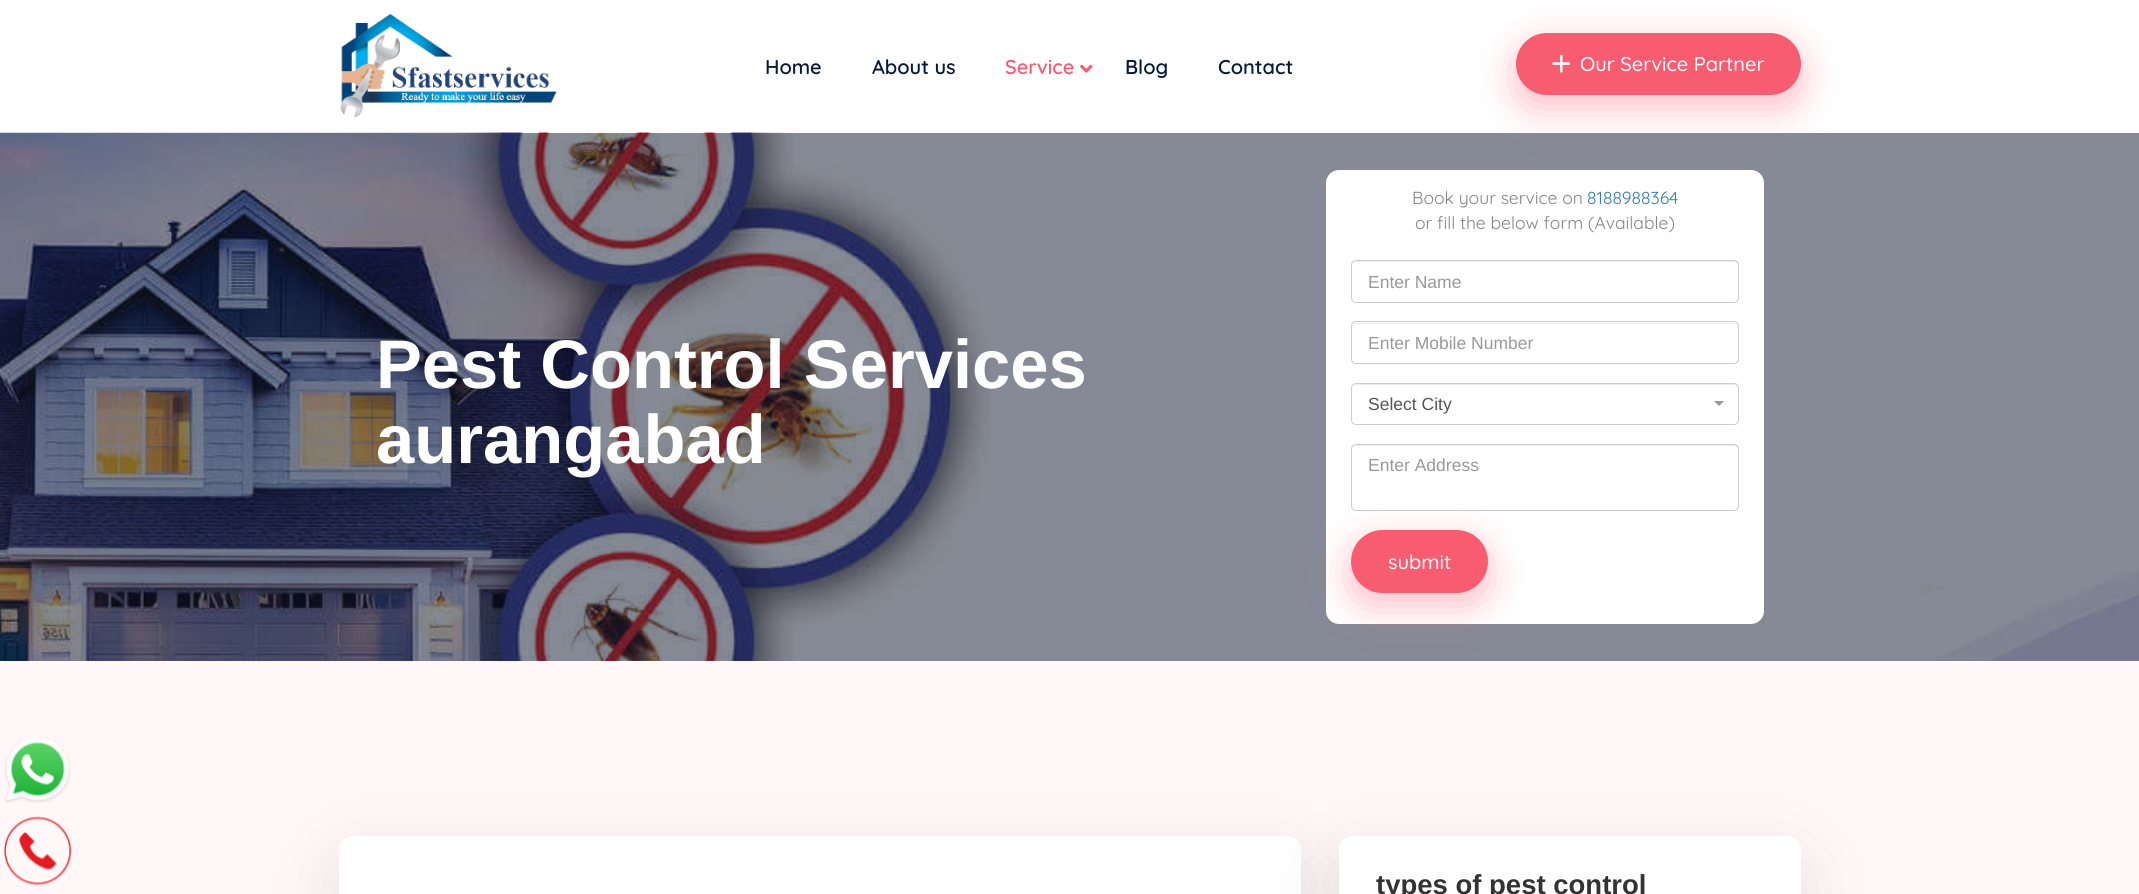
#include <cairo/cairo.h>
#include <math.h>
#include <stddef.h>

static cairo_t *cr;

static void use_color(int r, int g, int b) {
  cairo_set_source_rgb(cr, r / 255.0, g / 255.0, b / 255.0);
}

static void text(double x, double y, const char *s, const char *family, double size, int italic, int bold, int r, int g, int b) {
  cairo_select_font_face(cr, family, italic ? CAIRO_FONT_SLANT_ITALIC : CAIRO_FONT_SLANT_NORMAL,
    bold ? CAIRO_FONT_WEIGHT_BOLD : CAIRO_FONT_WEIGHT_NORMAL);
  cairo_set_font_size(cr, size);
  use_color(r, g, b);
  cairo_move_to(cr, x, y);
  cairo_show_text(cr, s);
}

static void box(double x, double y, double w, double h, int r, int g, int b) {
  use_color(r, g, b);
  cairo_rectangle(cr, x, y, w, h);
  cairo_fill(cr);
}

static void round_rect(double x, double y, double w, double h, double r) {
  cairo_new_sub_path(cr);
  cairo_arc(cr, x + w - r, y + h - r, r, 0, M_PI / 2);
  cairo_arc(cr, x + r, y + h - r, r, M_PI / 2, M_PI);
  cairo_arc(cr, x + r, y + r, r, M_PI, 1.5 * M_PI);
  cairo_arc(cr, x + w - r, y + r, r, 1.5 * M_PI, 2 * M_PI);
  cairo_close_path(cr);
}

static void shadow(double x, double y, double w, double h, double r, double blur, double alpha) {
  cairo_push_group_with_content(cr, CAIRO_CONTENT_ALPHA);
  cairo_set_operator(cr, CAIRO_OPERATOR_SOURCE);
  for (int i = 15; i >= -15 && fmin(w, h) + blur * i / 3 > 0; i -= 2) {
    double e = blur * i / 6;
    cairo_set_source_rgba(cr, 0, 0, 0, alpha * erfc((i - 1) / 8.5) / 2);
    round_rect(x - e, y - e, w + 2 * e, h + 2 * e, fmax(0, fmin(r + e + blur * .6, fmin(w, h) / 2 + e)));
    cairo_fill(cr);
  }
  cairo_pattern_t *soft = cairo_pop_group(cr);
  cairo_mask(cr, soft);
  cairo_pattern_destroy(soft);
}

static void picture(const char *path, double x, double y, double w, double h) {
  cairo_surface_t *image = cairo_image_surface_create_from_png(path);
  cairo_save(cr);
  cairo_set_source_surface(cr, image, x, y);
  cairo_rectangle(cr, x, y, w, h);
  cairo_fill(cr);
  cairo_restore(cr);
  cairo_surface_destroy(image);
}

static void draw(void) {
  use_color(255, 255, 255);
  cairo_paint(cr);
  box(0, 661, 2139, 233, 255, 247, 248);
  picture("img_01.png", 4, 737, 67, 66);
  picture("img_02.png", 3, 816, 69, 70);
  picture("img_03.png", 340, 13, 217, 105);
  picture("img_04.png", 1080, 64, 13, 9);
  picture("img_06.png", 0, 132, 2139, 529);
  use_color(248, 92, 112);
  shadow(1516, 45, 285, 63, 31.5, 19, 0.4);
  use_color(248, 92, 112);
  round_rect(1516, 33, 285, 62, 31);
  cairo_fill(cr);
  picture("img_05.png", 1552, 54, 18, 19);
  use_color(255, 255, 255);
  round_rect(1326, 170, 438, 454, 13);
  cairo_fill(cr);
  use_color(236, 236, 236);
  cairo_new_path(cr);
  cairo_move_to(cr, 1356, 262);
  cairo_line_to(cr, 1734, 262);
  cairo_curve_to(cr, 1736, 262, 1738, 264, 1738, 266);
  cairo_line_to(cr, 1738, 265);
  cairo_curve_to(cr, 1738, 263, 1736, 261, 1734, 261);
  cairo_line_to(cr, 1357, 261);
  cairo_curve_to(cr, 1356, 261, 1354, 262, 1354, 263);
  cairo_close_path(cr);
  cairo_fill(cr);
  round_rect(1351.5, 260.5, 387, 42, 4.5);
  use_color(204, 204, 204);
  cairo_set_line_width(cr, 1);
  cairo_stroke(cr);
  use_color(236, 236, 236);
  cairo_new_path(cr);
  cairo_move_to(cr, 1356, 324);
  cairo_line_to(cr, 1734, 324);
  cairo_curve_to(cr, 1736, 324, 1738, 325, 1738, 328);
  cairo_line_to(cr, 1738, 327);
  cairo_curve_to(cr, 1738, 325, 1736, 323, 1734, 323);
  cairo_line_to(cr, 1357, 323);
  cairo_curve_to(cr, 1356, 323, 1355, 324, 1354, 324);
  cairo_close_path(cr);
  cairo_fill(cr);
  round_rect(1351.5, 321.5, 387, 42, 4.5);
  use_color(204, 204, 204);
  cairo_stroke(cr);
  use_color(236, 236, 236);
  cairo_new_path(cr);
  cairo_move_to(cr, 1356, 385);
  cairo_line_to(cr, 1734, 385);
  cairo_curve_to(cr, 1736, 385, 1738, 387, 1738, 389);
  cairo_line_to(cr, 1738, 388);
  cairo_curve_to(cr, 1738, 386, 1736, 384, 1734, 384);
  cairo_line_to(cr, 1357, 384);
  cairo_curve_to(cr, 1356, 384, 1354, 385, 1354, 386);
  cairo_close_path(cr);
  cairo_fill(cr);
  round_rect(1351.5, 383.5, 387, 41, 4.5);
  use_color(204, 204, 204);
  cairo_stroke(cr);
  use_color(153, 153, 153);
  cairo_new_path(cr);
  cairo_move_to(cr, 1714, 401);
  cairo_line_to(cr, 1724, 401);
  cairo_line_to(cr, 1719, 406);
  cairo_close_path(cr);
  cairo_fill(cr);
  use_color(236, 236, 236);
  cairo_new_path(cr);
  cairo_move_to(cr, 1356, 446);
  cairo_line_to(cr, 1734, 446);
  cairo_curve_to(cr, 1736, 446, 1738, 448, 1738, 450);
  cairo_line_to(cr, 1738, 449);
  cairo_curve_to(cr, 1738, 447, 1736, 445, 1734, 445);
  cairo_line_to(cr, 1357, 445);
  cairo_curve_to(cr, 1356, 445, 1354, 446, 1354, 447);
  cairo_close_path(cr);
  cairo_fill(cr);
  round_rect(1351.5, 444.5, 387, 66, 4.5);
  use_color(204, 204, 204);
  cairo_stroke(cr);
  use_color(248, 92, 112);
  shadow(1351, 543, 137, 62, 31, 19, 0.4);
  use_color(248, 92, 112);
  round_rect(1351, 530, 137, 63, 31.5);
  cairo_fill(cr);
  use_color(0, 0, 0);
  shadow(339, 861, 962, 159, 13, 37.5, 0.1);
  use_color(255, 255, 255);
  round_rect(339, 836, 962, 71, 13);
  cairo_fill(cr);
  use_color(0, 0, 0);
  shadow(1339, 861, 462, 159, 13, 37.5, 0.1);
  use_color(255, 255, 255);
  round_rect(1339, 836, 462, 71, 13);
  cairo_fill(cr);
  text(765, 74, "Home", "Quicksand SemiBold", 20, 0, 0, 6, 26, 58);
  text(872, 74, "About us", "Quicksand SemiBold", 20, 0, 0, 6, 26, 58);
  text(1005, 74, "Service", "Quicksand SemiBold", 20, 0, 0, 248, 92, 112);
  text(1125, 74, "Blog", "Quicksand SemiBold", 20, 0, 0, 6, 26, 58);
  text(1218, 74, "Contact", "Quicksand SemiBold", 20, 0, 0, 6, 26, 58);
  text(1580, 71, "Our Service Partner", "Quicksand Medium", 20, 0, 0, 255, 255, 255);
  text(376, 388, "Pest Control Services", "Liberation Sans", 68.75, 0, 1, 255, 255, 255);
  text(376, 463, "aurangabad", "Liberation Sans", 68.75, 0, 1, 255, 255, 255);
  text(1412, 204, "Book your service on", "Quicksand", 17.5, 0, 0, 132, 132, 132);
  text(1587, 204, "8188988364", "Quicksand", 17.5, 0, 0, 51, 122, 183);
  text(1415, 229, "or fill the below form (Available)", "Quicksand", 17.5, 0, 0, 132, 132, 132);
  text(1368, 288, "Enter Name", "Liberation Sans", 17.5, 0, 0, 153, 153, 153);
  text(1368, 349, "Enter Mobile Number", "Liberation Sans", 17.5, 0, 0, 153, 153, 153);
  text(1368, 410, "Select City", "Liberation Sans", 17.5, 0, 0, 85, 85, 85);
  text(1368, 471, "Enter Address", "Liberation Sans", 17.5, 0, 0, 153, 153, 153);
  text(1388, 569, "submit", "Quicksand Medium", 20, 0, 0, 255, 255, 255);
  text(1376, 894, "types of pest control", "Liberation Sans", 27.5, 0, 1, 51, 51, 51);
}

int main(void) {
  cairo_surface_t *surface = cairo_image_surface_create(CAIRO_FORMAT_RGB24, 2139, 894);
  cr = cairo_create(surface);
  cairo_font_options_t *options = cairo_font_options_create();
  cairo_font_options_set_hint_metrics(options, CAIRO_HINT_METRICS_OFF);
  cairo_font_options_set_hint_style(options, CAIRO_HINT_STYLE_NONE);
  cairo_set_font_options(cr, options);
  cairo_set_miter_limit(cr, 4);
  draw();
  cairo_surface_write_to_png(surface, "out.png");
  cairo_font_options_destroy(options);
  cairo_destroy(cr);
  cairo_surface_destroy(surface);
  return 0;
}
